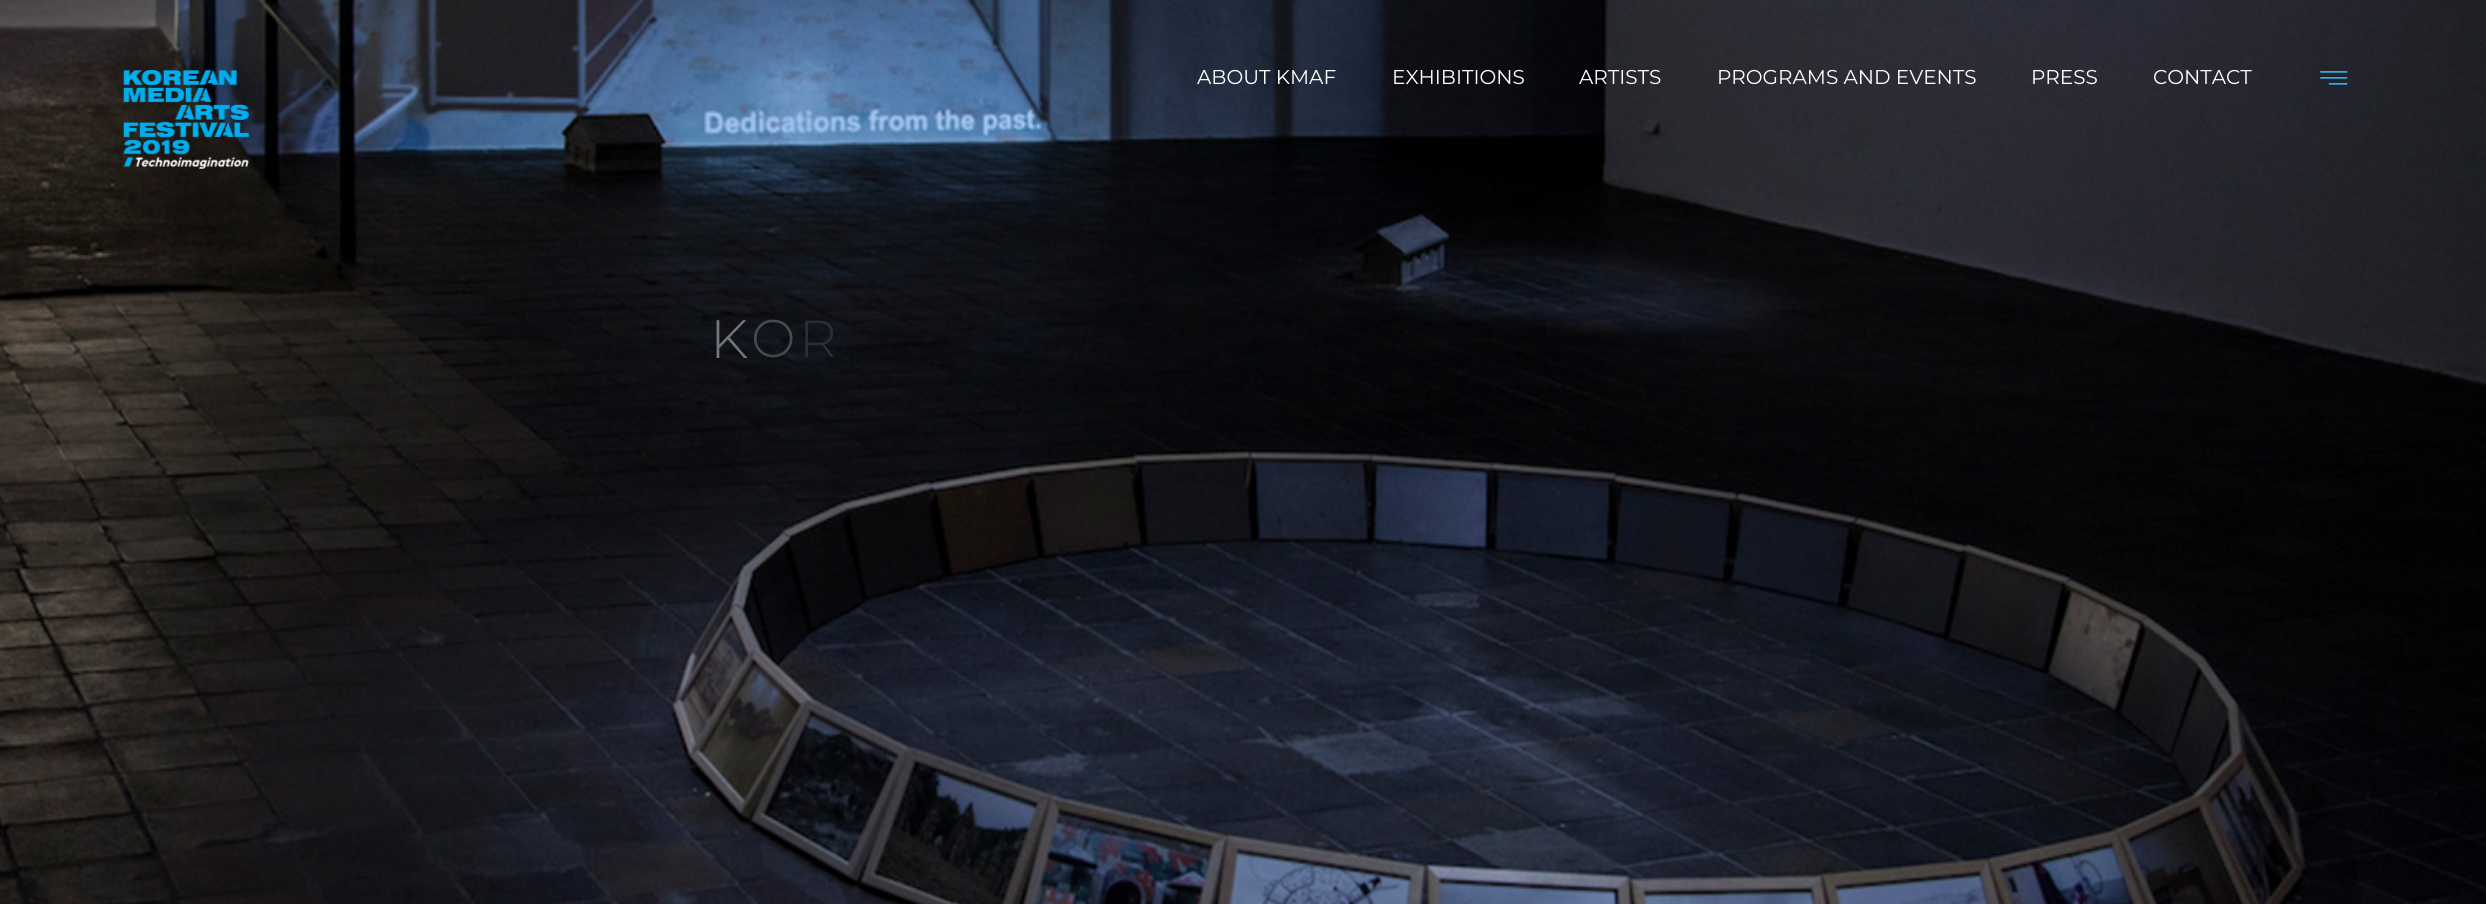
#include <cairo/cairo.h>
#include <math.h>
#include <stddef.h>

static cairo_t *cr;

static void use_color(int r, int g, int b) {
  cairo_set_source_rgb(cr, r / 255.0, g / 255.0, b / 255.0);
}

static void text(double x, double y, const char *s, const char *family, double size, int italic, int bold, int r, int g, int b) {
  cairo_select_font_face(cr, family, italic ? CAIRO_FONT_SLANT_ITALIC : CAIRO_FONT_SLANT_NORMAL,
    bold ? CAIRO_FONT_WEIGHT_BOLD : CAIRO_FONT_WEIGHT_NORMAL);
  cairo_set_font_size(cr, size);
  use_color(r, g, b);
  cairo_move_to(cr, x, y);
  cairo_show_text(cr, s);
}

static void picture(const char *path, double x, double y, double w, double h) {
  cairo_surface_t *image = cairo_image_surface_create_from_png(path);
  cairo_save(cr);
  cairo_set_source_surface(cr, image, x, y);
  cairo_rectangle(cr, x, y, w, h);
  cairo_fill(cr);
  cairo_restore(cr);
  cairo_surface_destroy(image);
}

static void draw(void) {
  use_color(255, 255, 255);
  cairo_paint(cr);
  picture("img_03.png", 0, 0, 2486, 904);
  picture("img_01.png", 123, 70, 126, 99);
  picture("img_02.png", 2320, 71, 28, 14);
  text(1197, 84, "ABOUT KMAF", "Montserrat", 20, 0, 0, 255, 255, 255);
  text(1392, 84, "EXHIBITIONS", "Montserrat", 20, 0, 0, 255, 255, 255);
  text(1579, 84, "ARTISTS", "Montserrat", 20, 0, 0, 255, 255, 255);
  text(1717, 84, "PROGRAMS AND EVENTS", "Montserrat", 20, 0, 0, 255, 255, 255);
  text(2031, 84, "PRESS", "Montserrat", 20, 0, 0, 255, 255, 255);
  text(2153, 84, "CONTACT", "Montserrat", 20, 0, 0, 255, 255, 255);
  text(710, 358, "K", "Montserrat Light", 54, 0, 0, 116, 117, 121);
  text(751, 357, "O", "Montserrat Light", 53, 0, 0, 71, 73, 78);
  text(799, 357, "R", "Montserrat Light", 52, 0, 0, 44, 46, 53);
}

int main(void) {
  cairo_surface_t *surface = cairo_image_surface_create(CAIRO_FORMAT_RGB24, 2486, 904);
  cr = cairo_create(surface);
  cairo_font_options_t *options = cairo_font_options_create();
  cairo_font_options_set_hint_metrics(options, CAIRO_HINT_METRICS_OFF);
  cairo_font_options_set_hint_style(options, CAIRO_HINT_STYLE_NONE);
  cairo_set_font_options(cr, options);
  cairo_set_miter_limit(cr, 4);
  draw();
  cairo_surface_write_to_png(surface, "out.png");
  cairo_font_options_destroy(options);
  cairo_destroy(cr);
  cairo_surface_destroy(surface);
  return 0;
}
